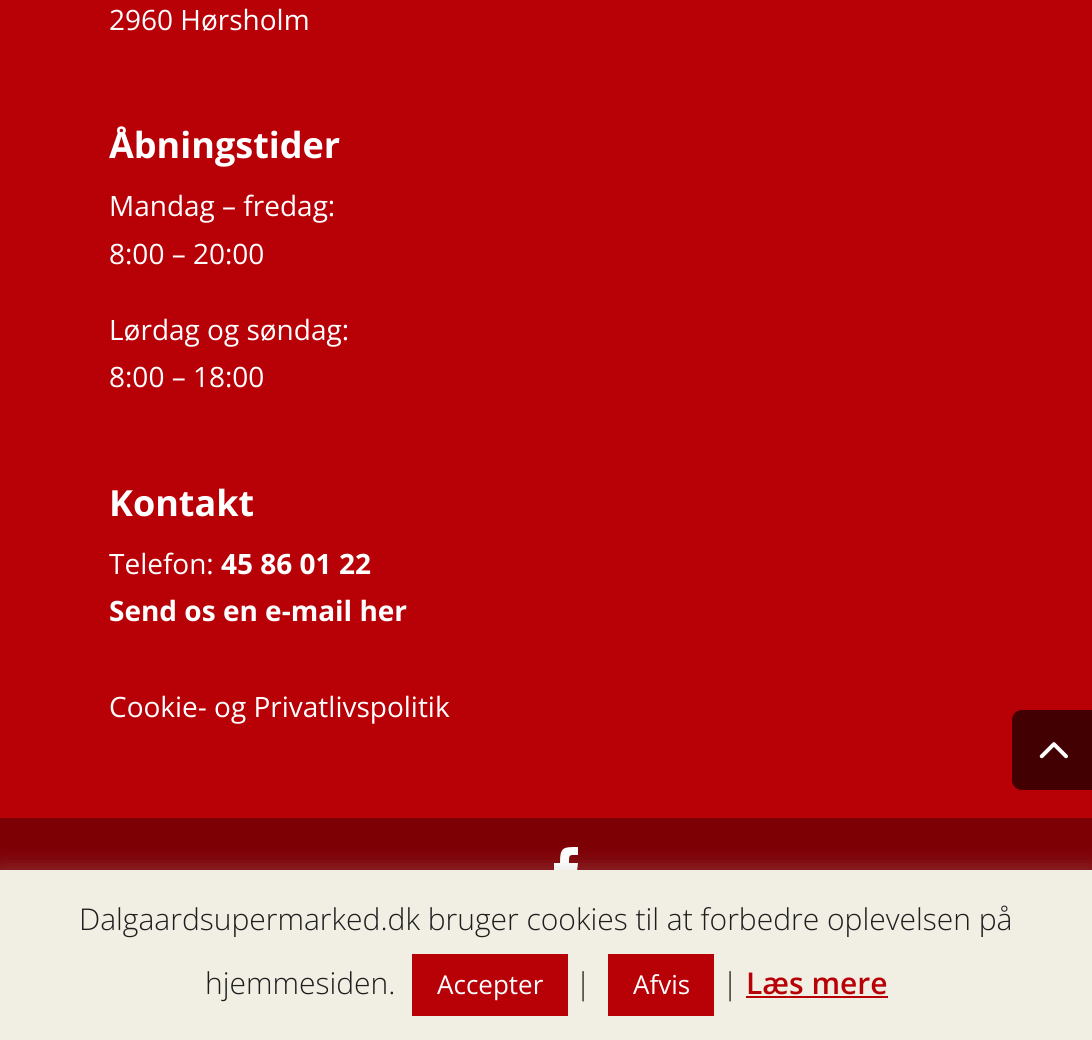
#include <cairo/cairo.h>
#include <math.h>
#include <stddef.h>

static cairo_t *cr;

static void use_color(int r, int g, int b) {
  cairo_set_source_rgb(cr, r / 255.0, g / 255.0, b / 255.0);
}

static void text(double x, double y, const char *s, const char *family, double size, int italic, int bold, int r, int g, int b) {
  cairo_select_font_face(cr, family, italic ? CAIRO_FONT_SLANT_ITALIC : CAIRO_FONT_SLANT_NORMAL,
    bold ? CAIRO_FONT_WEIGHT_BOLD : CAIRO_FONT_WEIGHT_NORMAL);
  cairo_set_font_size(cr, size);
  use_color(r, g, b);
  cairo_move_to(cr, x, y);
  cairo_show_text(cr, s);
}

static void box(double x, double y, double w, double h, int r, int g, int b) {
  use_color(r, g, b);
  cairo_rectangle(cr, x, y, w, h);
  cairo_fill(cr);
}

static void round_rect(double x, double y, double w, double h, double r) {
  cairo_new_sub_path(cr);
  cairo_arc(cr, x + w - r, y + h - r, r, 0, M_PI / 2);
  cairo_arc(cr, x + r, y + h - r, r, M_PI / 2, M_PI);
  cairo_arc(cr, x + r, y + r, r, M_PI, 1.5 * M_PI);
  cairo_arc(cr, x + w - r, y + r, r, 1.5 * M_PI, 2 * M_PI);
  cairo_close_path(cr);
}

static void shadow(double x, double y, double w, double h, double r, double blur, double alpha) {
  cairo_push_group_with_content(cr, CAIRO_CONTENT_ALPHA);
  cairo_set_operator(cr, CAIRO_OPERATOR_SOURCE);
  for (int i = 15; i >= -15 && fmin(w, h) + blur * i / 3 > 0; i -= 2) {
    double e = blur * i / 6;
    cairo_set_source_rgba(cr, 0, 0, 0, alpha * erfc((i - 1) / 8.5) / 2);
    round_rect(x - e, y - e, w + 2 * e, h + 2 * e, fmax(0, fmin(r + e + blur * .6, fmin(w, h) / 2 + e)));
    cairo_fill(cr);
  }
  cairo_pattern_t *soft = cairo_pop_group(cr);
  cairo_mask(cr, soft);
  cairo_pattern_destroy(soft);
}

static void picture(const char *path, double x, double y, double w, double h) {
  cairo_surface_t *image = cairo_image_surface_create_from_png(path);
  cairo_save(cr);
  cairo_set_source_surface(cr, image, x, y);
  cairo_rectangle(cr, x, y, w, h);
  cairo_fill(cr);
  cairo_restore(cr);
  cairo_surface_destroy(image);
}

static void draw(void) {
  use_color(184, 0, 7);
  cairo_paint(cr);
  box(0, 818, 1092, 52, 125, 0, 5);
  use_color(255, 255, 255);
  cairo_new_path(cr);
  cairo_move_to(cr, 560, 895);
  cairo_line_to(cr, 569, 895);
  cairo_line_to(cr, 569, 871);
  cairo_line_to(cr, 577, 871);
  cairo_line_to(cr, 578, 863);
  cairo_line_to(cr, 569, 863);
  cairo_curve_to(cr, 569, 854, 569, 855, 578, 855);
  cairo_line_to(cr, 578, 847);
  cairo_curve_to(cr, 563, 847, 560, 847, 560, 863);
  cairo_line_to(cr, 554, 863);
  cairo_line_to(cr, 554, 871);
  cairo_line_to(cr, 560, 871);
  cairo_close_path(cr);
  cairo_fill(cr);
  use_color(110, 0, 4);
  cairo_new_path(cr);
  cairo_move_to(cr, 1022, 710);
  cairo_line_to(cr, 1092, 710);
  cairo_line_to(cr, 1092, 790);
  cairo_line_to(cr, 1022, 790);
  cairo_curve_to(cr, 1016.5, 790, 1012, 785.5, 1012, 780);
  cairo_line_to(cr, 1012, 720);
  cairo_curve_to(cr, 1012, 714.5, 1016.5, 710, 1022, 710);
  cairo_close_path(cr);
  cairo_fill(cr);
  picture("img_01.png", 1039, 742, 29, 17);
  cairo_set_source_rgba(cr, 0, 0, 0, 0.4);
  cairo_new_path(cr);
  cairo_move_to(cr, 1022, 710);
  cairo_line_to(cr, 1092, 710);
  cairo_line_to(cr, 1092, 790);
  cairo_line_to(cr, 1022, 790);
  cairo_curve_to(cr, 1016.5, 790, 1012, 785.5, 1012, 780);
  cairo_line_to(cr, 1012, 720);
  cairo_curve_to(cr, 1012, 714.5, 1016.5, 710, 1022, 710);
  cairo_close_path(cr);
  cairo_fill(cr);
  picture("img_02.png", 1039, 742, 29, 17);
  use_color(172, 171, 171);
  shadow(0, 868, 1092, 170, 0, 10, 0.3);
  box(0, 870, 1092, 170, 241, 238, 228);
  box(412, 954, 156, 62, 184, 0, 7);
  box(608, 954, 106, 62, 184, 0, 7);
  box(746, 996, 142, 2, 184, 0, 7);
  text(109, 30, "2960 Hørsholm", "Open Sans", 28, 0, 0, 255, 255, 255);
  text(109, 158, "Åbningstider", "Open Sans", 36, 0, 1, 255, 255, 255);
  text(109, 216, "Mandag – fredag:", "Open Sans", 28, 0, 0, 255, 255, 255);
  text(109, 264, "8:00 – 20:00", "Open Sans", 28, 0, 0, 255, 255, 255);
  text(109, 340, "Lørdag og søndag:", "Open Sans", 28, 0, 0, 255, 255, 255);
  text(109, 387, "8:00 – 18:00", "Open Sans", 28, 0, 0, 255, 255, 255);
  text(109, 516, "Kontakt", "Open Sans", 36, 0, 1, 255, 255, 255);
  text(109, 574, "Telefon:", "Open Sans", 28, 0, 0, 255, 255, 255);
  text(221, 574, "45 86 01 22", "Open Sans", 28, 0, 1, 255, 255, 255);
  text(109, 621, "Send os en e-mail her", "Open Sans", 28, 0, 1, 255, 255, 255);
  text(109, 717, "Cookie- og Privatlivspolitik", "Open Sans", 28, 0, 0, 255, 255, 255);
  text(79, 930, "Dalgaardsupermarked.dk bruger cookies til at forbedre oplevelsen på", "Open Sans Light", 30, 0, 0, 30, 30, 30);
  text(205, 994, "hjemmesiden.", "Open Sans Light", 30, 0, 0, 30, 30, 30);
  text(437, 994, "Accepter", "Open Sans", 26, 0, 0, 255, 255, 255);
  text(575, 994, "|", "Open Sans Light", 30, 0, 0, 30, 30, 30);
  text(633, 994, "Afvis", "Open Sans", 26, 0, 0, 255, 255, 255);
  text(722, 994, "|", "Open Sans Light", 30, 0, 0, 30, 30, 30);
  text(746, 994, "Læs mere", "Open Sans SemiBold", 30, 0, 0, 184, 0, 7);
}

int main(void) {
  cairo_surface_t *surface = cairo_image_surface_create(CAIRO_FORMAT_RGB24, 1092, 1040);
  cr = cairo_create(surface);
  cairo_font_options_t *options = cairo_font_options_create();
  cairo_font_options_set_hint_metrics(options, CAIRO_HINT_METRICS_OFF);
  cairo_font_options_set_hint_style(options, CAIRO_HINT_STYLE_NONE);
  cairo_set_font_options(cr, options);
  cairo_set_miter_limit(cr, 4);
  draw();
  cairo_surface_write_to_png(surface, "out.png");
  cairo_font_options_destroy(options);
  cairo_destroy(cr);
  cairo_surface_destroy(surface);
  return 0;
}
